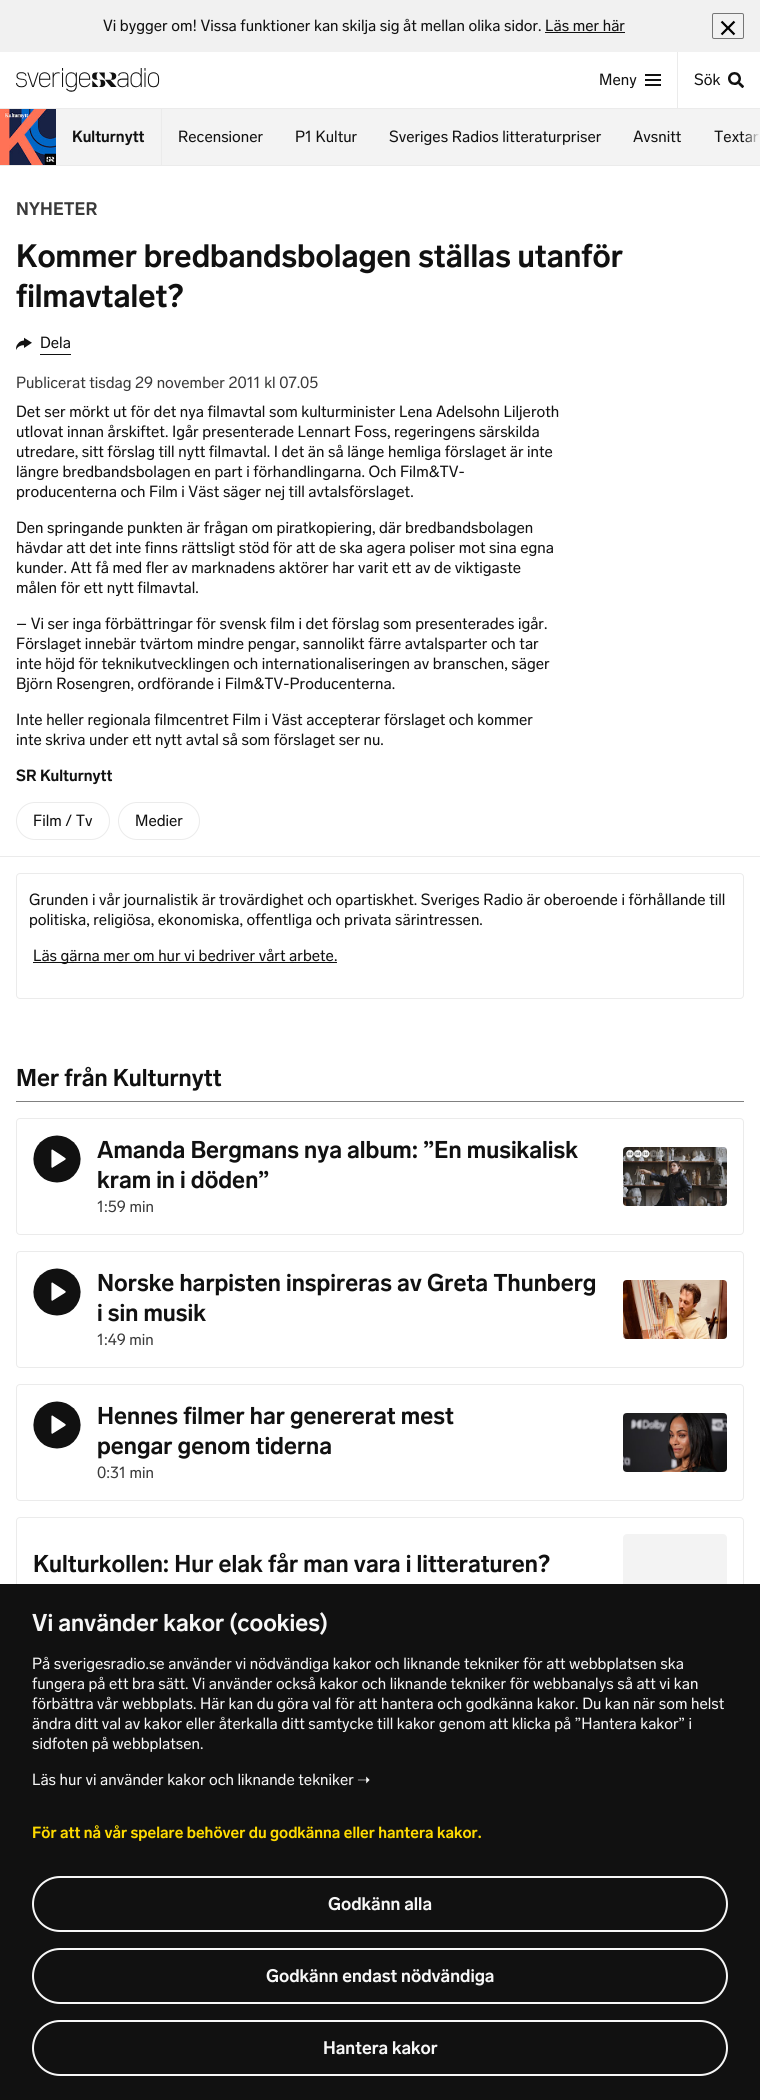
#include <cairo/cairo.h>
#include <math.h>
#include <stddef.h>

static cairo_t *cr;

static void use_color(int r, int g, int b) {
  cairo_set_source_rgb(cr, r / 255.0, g / 255.0, b / 255.0);
}

static void text(double x, double y, const char *s, const char *family, double size, int italic, int bold, int r, int g, int b) {
  cairo_select_font_face(cr, family, italic ? CAIRO_FONT_SLANT_ITALIC : CAIRO_FONT_SLANT_NORMAL,
    bold ? CAIRO_FONT_WEIGHT_BOLD : CAIRO_FONT_WEIGHT_NORMAL);
  cairo_set_font_size(cr, size);
  use_color(r, g, b);
  cairo_move_to(cr, x, y);
  cairo_show_text(cr, s);
}

static void box(double x, double y, double w, double h, int r, int g, int b) {
  use_color(r, g, b);
  cairo_rectangle(cr, x, y, w, h);
  cairo_fill(cr);
}

static void round_rect(double x, double y, double w, double h, double r) {
  cairo_new_sub_path(cr);
  cairo_arc(cr, x + w - r, y + h - r, r, 0, M_PI / 2);
  cairo_arc(cr, x + r, y + h - r, r, M_PI / 2, M_PI);
  cairo_arc(cr, x + r, y + r, r, M_PI, 1.5 * M_PI);
  cairo_arc(cr, x + w - r, y + r, r, 1.5 * M_PI, 2 * M_PI);
  cairo_close_path(cr);
}

static void picture(const char *path, double x, double y, double w, double h) {
  cairo_surface_t *image = cairo_image_surface_create_from_png(path);
  cairo_save(cr);
  cairo_set_source_surface(cr, image, x, y);
  cairo_rectangle(cr, x, y, w, h);
  cairo_fill(cr);
  cairo_restore(cr);
  cairo_surface_destroy(image);
}

static void draw(void) {
  cairo_pattern_t *gradient;
  use_color(255, 255, 255);
  cairo_paint(cr);
  box(0, 0, 760, 52, 241, 241, 241);
  box(545, 32, 80, 1, 17, 17, 17);
  round_rect(712.5, 13.5, 31, 25, 1.5);
  use_color(118, 118, 118);
  cairo_set_line_width(cr, 1);
  cairo_stroke(cr);
  picture("img_01.png", 720, 20, 16, 16);
  box(0, 108, 760, 1, 235, 235, 235);
  picture("img_02.png", 16, 68, 144, 24);
  box(645, 74, 16, 2, 17, 17, 17);
  box(645, 79, 16, 2, 17, 17, 17);
  box(645, 84, 16, 2, 17, 17, 17);
  box(677, 52, 1, 56, 235, 235, 235);
  picture("img_03.png", 728, 72, 16, 16);
  box(56, 109, 704, 56, 243, 243, 243);
  box(0, 165, 760, 1, 235, 235, 235);
  box(161, 109, 1, 56, 235, 235, 235);
  picture("img_04.png", 0, 109, 56, 56);
  picture("img_05.png", 16, 337, 16, 13);
  box(40, 354, 31, 1, 17, 17, 17);
  round_rect(16.5, 802.5, 93, 37, 18.5);
  use_color(235, 235, 235);
  cairo_stroke(cr);
  round_rect(118.5, 802.5, 81, 37, 18.5);
  cairo_stroke(cr);
  box(0, 856, 760, 1, 235, 235, 235);
  round_rect(16.5, 873.5, 727, 125, 3.5);
  cairo_stroke(cr);
  box(33, 962, 304, 1, 17, 17, 17);
  box(16, 1101, 728, 1, 128, 128, 128);
  round_rect(16.5, 1118.5, 727, 116, 3.5);
  use_color(235, 235, 235);
  cairo_stroke(cr);
  picture("img_06.png", 33, 1135, 48, 48);
  picture("img_07.png", 623, 1147, 104, 59);
  round_rect(16.5, 1251.5, 727, 116, 3.5);
  cairo_stroke(cr);
  picture("img_08.png", 33, 1268, 48, 48);
  picture("img_09.png", 623, 1280, 104, 59);
  round_rect(16.5, 1384.5, 727, 116, 3.5);
  cairo_stroke(cr);
  picture("img_06.png", 33, 1401, 48, 48);
  picture("img_10.png", 623, 1413, 104, 59);
  round_rect(16.5, 1517.5, 727, 92, 3.5);
  cairo_stroke(cr);
  use_color(243, 243, 243);
  round_rect(623, 1534, 104, 59, 4);
  cairo_fill(cr);
  box(0, 1584, 760, 516, 17, 17, 17);
  round_rect(33, 1877, 694, 54, 27);
  use_color(247, 247, 247);
  cairo_set_line_width(cr, 2);
  cairo_stroke(cr);
  round_rect(33, 1949, 694, 54, 27);
  cairo_stroke(cr);
  round_rect(33, 2021, 694, 54, 27);
  cairo_stroke(cr);
  text(103, 31, "Vi bygger om! Vissa funktioner kan skilja sig åt mellan olika sidor. Läs mer här", "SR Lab", 16, 0, 0, 17, 17, 17);
  text(599, 85, "Meny", "SR Lab", 16, 0, 0, 17, 17, 17);
  text(694, 85, "Sök", "SR Lab", 16, 0, 0, 17, 17, 17);
  text(72, 142, "Kulturnytt", "SR Lab SemiBold", 16, 0, 0, 17, 17, 17);
  text(178, 142, "Recensioner", "SR Lab", 16, 0, 0, 17, 17, 17);
  text(295, 142, "P1 Kultur", "SR Lab", 16, 0, 0, 17, 17, 17);
  text(389, 142, "Sveriges Radios litteraturpriser", "SR Lab", 16, 0, 0, 17, 17, 17);
  text(633, 142, "Avsnitt", "SR Lab", 16, 0, 0, 17, 17, 17);
  text(714, 142, "Textar", "SR Lab", 16, 0, 0, 17, 17, 17);
  gradient = cairo_pattern_create_linear(744, 137, 760, 137);
  cairo_pattern_add_color_stop_rgba(gradient, 0, 0.953, 0.953, 0.953, 0);
  cairo_pattern_add_color_stop_rgba(gradient, 1, 0.953, 0.953, 0.953, 1);
  cairo_set_source(cr, gradient);
  cairo_pattern_destroy(gradient);
  cairo_rectangle(cr, 745, 133, 13, 10);
  cairo_fill(cr);
  text(16, 215, "NYHETER", "SR Lab SemiBold", 18, 0, 0, 58, 58, 58);
  text(16, 267, "Kommer bredbandsbolagen ställas utanför", "SR Lab SemiBold", 32, 0, 0, 17, 17, 17);
  text(16, 307, "filmavtalet?", "SR Lab SemiBold", 32, 0, 0, 17, 17, 17);
  text(40, 348, "Dela", "SR Lab", 16, 0, 0, 17, 17, 17);
  text(16, 388, "Publicerat tisdag 29 november 2011 kl 07.05", "SR Lab", 16, 0, 0, 58, 58, 58);
  text(16, 417, "Det ser mörkt ut för det nya filmavtal som kulturminister Lena Adelsohn Liljeroth", "SR Lab", 16, 0, 0, 17, 17, 17);
  text(16, 437, "utlovat innan årskiftet. Igår presenterade Lennart Foss, regeringens särskilda", "SR Lab", 16, 0, 0, 17, 17, 17);
  text(16, 457, "utredare, sitt förslag till nytt filmavtal. I det än så länge hemliga förslaget är inte", "SR Lab", 16, 0, 0, 17, 17, 17);
  text(16, 477, "längre bredbandsbolagen en part i förhandlingarna. Och Film&TV-", "SR Lab", 16, 0, 0, 17, 17, 17);
  text(16, 497, "producenterna och Film i Väst säger nej till avtalsförslaget.", "SR Lab", 16, 0, 0, 17, 17, 17);
  text(16, 533, "Den springande punkten är frågan om piratkopiering, där bredbandsbolagen", "SR Lab", 16, 0, 0, 17, 17, 17);
  text(16, 553, "hävdar att det inte finns rättsligt stöd för att de ska agera poliser mot sina egna", "SR Lab", 16, 0, 0, 17, 17, 17);
  text(16, 573, "kunder. Att få med fler av marknadens aktörer har varit ett av de viktigaste", "SR Lab", 16, 0, 0, 17, 17, 17);
  text(16, 593, "målen för ett nytt filmavtal.", "SR Lab", 16, 0, 0, 17, 17, 17);
  text(16, 629, "– Vi ser inga förbättringar för svensk film i det förslag som presenterades igår.", "SR Lab", 16, 0, 0, 17, 17, 17);
  text(16, 649, "Förslaget innebär tvärtom mindre pengar, sannolikt färre avtalsparter och tar", "SR Lab", 16, 0, 0, 17, 17, 17);
  text(16, 669, "inte höjd för teknikutvecklingen och internationaliseringen av branschen, säger", "SR Lab", 16, 0, 0, 17, 17, 17);
  text(16, 689, "Björn Rosengren, ordförande i Film&TV-Producenterna.", "SR Lab", 16, 0, 0, 17, 17, 17);
  text(16, 725, "Inte heller regionala filmcentret Film i Väst accepterar förslaget och kommer", "SR Lab", 16, 0, 0, 17, 17, 17);
  text(16, 745, "inte skriva under ett nytt avtal så som förslaget ser nu.", "SR Lab", 16, 0, 0, 17, 17, 17);
  text(16, 781, "SR Kulturnytt", "SR Lab SemiBold", 16, 0, 0, 17, 17, 17);
  text(33, 826, "Film / Tv", "SR Lab", 16, 0, 0, 17, 17, 17);
  text(135, 826, "Medier", "SR Lab", 16, 0, 0, 17, 17, 17);
  text(29, 905, "Grunden i vår journalistik är trovärdighet och opartiskhet. Sveriges Radio är oberoende i förhållande till", "SR Lab", 16, 0, 0, 17, 17, 17);
  text(29, 925, "politiska, religiösa, ekonomiska, offentliga och privata särintressen.", "SR Lab", 16, 0, 0, 17, 17, 17);
  text(33, 961, "Läs gärna mer om hur vi bedriver vårt arbete.", "SR Lab", 16, 0, 0, 17, 17, 17);
  text(16, 1086, "Mer från Kulturnytt", "SR Lab SemiBold", 24, 0, 0, 17, 17, 17);
  text(97, 1158, "Amanda Bergmans nya album: ”En musikalisk", "SR Lab SemiBold", 24, 0, 0, 17, 17, 17);
  text(97, 1188, "kram in i döden”", "SR Lab SemiBold", 24, 0, 0, 17, 17, 17);
  text(97, 1212, "1:59 min", "SR Lab", 16, 0, 0, 58, 58, 58);
  text(97, 1291, "Norske harpisten inspireras av Greta Thunberg", "SR Lab SemiBold", 24, 0, 0, 17, 17, 17);
  text(97, 1321, "i sin musik", "SR Lab SemiBold", 24, 0, 0, 17, 17, 17);
  text(97, 1345, "1:49 min", "SR Lab", 16, 0, 0, 58, 58, 58);
  text(97, 1424, "Hennes filmer har genererat mest", "SR Lab SemiBold", 24, 0, 0, 17, 17, 17);
  text(97, 1454, "pengar genom tiderna", "SR Lab SemiBold", 24, 0, 0, 17, 17, 17);
  text(97, 1478, "0:31 min", "SR Lab", 16, 0, 0, 58, 58, 58);
  text(33, 1572, "Kulturkollen: Hur elak får man vara i litteraturen?", "SR Lab SemiBold", 24, 0, 0, 17, 17, 17);
  text(32, 1631, "Vi använder kakor (cookies)", "SR Lab SemiBold", 24, 0, 0, 247, 247, 247);
  text(32, 1669, "På sverigesradio.se använder vi nödvändiga kakor och liknande tekniker för att webbplatsen ska", "SR Lab", 16, 0, 0, 247, 247, 247);
  text(32, 1689, "fungera på ett bra sätt. Vi använder också kakor och liknande tekniker för webbanalys så att vi kan", "SR Lab", 16, 0, 0, 247, 247, 247);
  text(32, 1709, "förbättra vår webbplats. Här kan du göra val för att hantera och godkänna kakor. Du kan när som helst", "SR Lab", 16, 0, 0, 247, 247, 247);
  text(32, 1729, "ändra ditt val av kakor eller återkalla ditt samtycke till kakor genom att klicka på ”Hantera kakor” i", "SR Lab", 16, 0, 0, 247, 247, 247);
  text(32, 1749, "sidfoten på webbplatsen.", "SR Lab", 16, 0, 0, 247, 247, 247);
  text(32, 1785, "Läs hur vi använder kakor och liknande tekniker", "SR Lab", 16, 0, 0, 247, 247, 247);
  text(357, 1785, "➝", "DejaVu Sans", 16, 0, 0, 247, 247, 247);
  text(32, 1838, "För att nå vår spelare behöver du godkänna eller hantera kakor.", "SR Lab SemiBold", 16, 0, 0, 255, 219, 0);
  text(328, 1910, "Godkänn alla", "SR Lab SemiBold", 18, 0, 0, 247, 247, 247);
  text(266, 1982, "Godkänn endast nödvändiga", "SR Lab SemiBold", 18, 0, 0, 247, 247, 247);
  text(323, 2054, "Hantera kakor", "SR Lab SemiBold", 18, 0, 0, 247, 247, 247);
}

int main(void) {
  cairo_surface_t *surface = cairo_image_surface_create(CAIRO_FORMAT_RGB24, 760, 2100);
  cr = cairo_create(surface);
  cairo_font_options_t *options = cairo_font_options_create();
  cairo_font_options_set_hint_metrics(options, CAIRO_HINT_METRICS_OFF);
  cairo_font_options_set_hint_style(options, CAIRO_HINT_STYLE_NONE);
  cairo_set_font_options(cr, options);
  cairo_set_miter_limit(cr, 4);
  draw();
  cairo_surface_write_to_png(surface, "out.png");
  cairo_font_options_destroy(options);
  cairo_destroy(cr);
  cairo_surface_destroy(surface);
  return 0;
}
